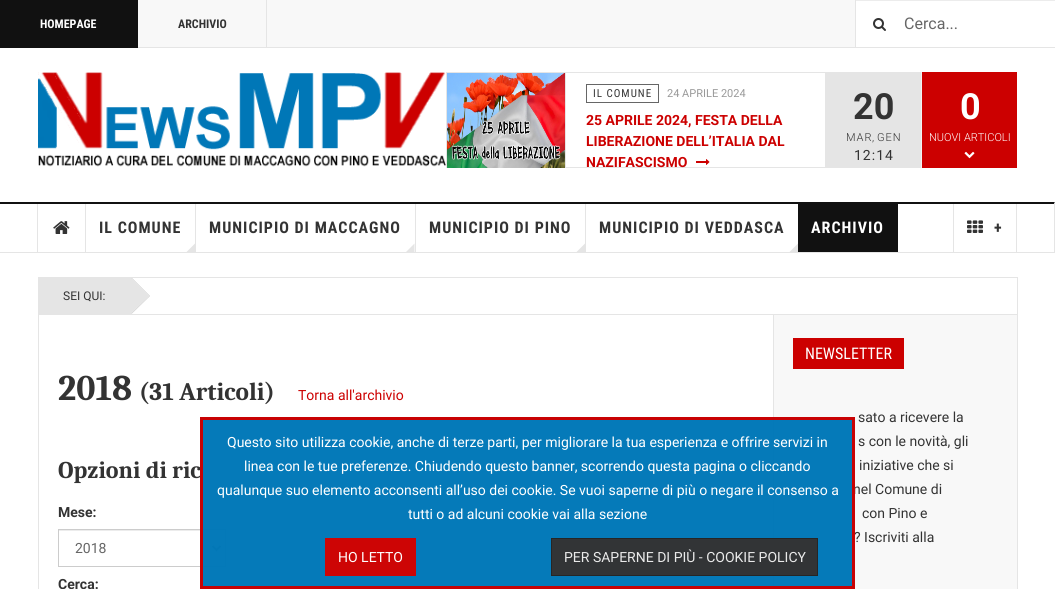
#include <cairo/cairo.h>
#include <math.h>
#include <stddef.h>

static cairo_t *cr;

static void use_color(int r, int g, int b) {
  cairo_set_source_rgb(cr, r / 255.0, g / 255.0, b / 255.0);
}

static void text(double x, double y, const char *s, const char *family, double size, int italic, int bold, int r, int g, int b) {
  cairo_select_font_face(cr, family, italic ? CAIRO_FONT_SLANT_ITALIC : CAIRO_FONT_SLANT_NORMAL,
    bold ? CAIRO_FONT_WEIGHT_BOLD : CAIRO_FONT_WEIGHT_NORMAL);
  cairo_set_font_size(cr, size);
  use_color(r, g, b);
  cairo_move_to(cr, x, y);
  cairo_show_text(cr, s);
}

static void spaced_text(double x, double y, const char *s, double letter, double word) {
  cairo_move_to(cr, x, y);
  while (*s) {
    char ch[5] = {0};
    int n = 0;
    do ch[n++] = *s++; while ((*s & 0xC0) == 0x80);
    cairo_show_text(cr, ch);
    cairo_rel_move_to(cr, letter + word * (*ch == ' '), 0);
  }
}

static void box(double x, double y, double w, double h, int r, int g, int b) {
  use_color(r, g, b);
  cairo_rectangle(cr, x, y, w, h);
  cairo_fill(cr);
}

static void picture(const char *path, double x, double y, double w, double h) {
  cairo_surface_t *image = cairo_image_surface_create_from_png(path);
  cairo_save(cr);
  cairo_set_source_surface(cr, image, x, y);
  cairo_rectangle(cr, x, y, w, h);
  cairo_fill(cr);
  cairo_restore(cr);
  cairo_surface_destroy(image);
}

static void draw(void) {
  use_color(255, 255, 255);
  cairo_paint(cr);
  box(138, 0, 717, 47, 248, 248, 248);
  box(138, 47, 917, 1, 229, 229, 229);
  box(0, 0, 138, 48, 17, 17, 17);
  box(266, 0, 1, 48, 229, 229, 229);
  picture("img_01.png", 873, 18, 13, 13);
  box(856, 0, 199, 1, 236, 236, 236);
  box(855, 0, 1, 47, 229, 229, 229);
  picture("img_02.png", 38, 72, 408, 95);
  cairo_rectangle(cr, 446.5, 72.5, 570, 95);
  cairo_set_line_width(cr, 1);
  cairo_stroke(cr);
  cairo_save(cr);
  cairo_rectangle(cr, 446, 72, 379, 96);
  cairo_clip(cr);
  cairo_rectangle(cr, 446.5, 72.5, 119, 97);
  cairo_stroke(cr);
  cairo_restore(cr);
  picture("img_03.png", 447, 73, 118, 95);
  cairo_rectangle(cr, 586.5, 84.5, 72, 18);
  use_color(102, 102, 102);
  cairo_stroke(cr);
  picture("img_04.png", 696, 159, 14, 6);
  box(825, 73, 96, 94, 229, 229, 229);
  box(922, 72, 95, 96, 204, 0, 0);
  box(921, 72, 1, 96, 242, 242, 242);
  picture("img_05.png", 964, 151, 11, 8);
  use_color(17, 17, 17);
  cairo_new_path(cr);
  cairo_move_to(cr, 0, 202);
  cairo_line_to(cr, 1055, 202);
  cairo_line_to(cr, 1054, 204);
  cairo_line_to(cr, 0, 204);
  cairo_close_path(cr);
  cairo_fill(cr);
  use_color(229, 229, 229);
  cairo_new_path(cr);
  cairo_move_to(cr, 1055, 202);
  cairo_line_to(cr, 1055, 253);
  cairo_line_to(cr, 1054, 252);
  cairo_line_to(cr, 1054, 204);
  cairo_close_path(cr);
  cairo_fill(cr);
  box(0, 252, 1055, 1, 229, 229, 229);
  box(37, 204, 1, 48, 229, 229, 229);
  box(85, 204, 1, 48, 229, 229, 229);
  picture("img_06.png", 53, 221, 17, 13);
  box(195, 204, 1, 48, 229, 229, 229);
  cairo_new_path(cr);
  cairo_move_to(cr, 186.5, 252);
  cairo_line_to(cr, 195, 243.5);
  cairo_line_to(cr, 195, 252);
  cairo_close_path(cr);
  cairo_fill(cr);
  box(415, 204, 1, 48, 229, 229, 229);
  cairo_new_path(cr);
  cairo_move_to(cr, 406, 252);
  cairo_line_to(cr, 414.5, 243.5);
  cairo_line_to(cr, 414.5, 252);
  cairo_close_path(cr);
  cairo_fill(cr);
  box(585, 204, 1, 48, 229, 229, 229);
  cairo_new_path(cr);
  cairo_move_to(cr, 576.5, 252);
  cairo_line_to(cr, 585, 243.5);
  cairo_line_to(cr, 585, 252);
  cairo_close_path(cr);
  cairo_fill(cr);
  cairo_new_path(cr);
  cairo_move_to(cr, 789.5, 252);
  cairo_line_to(cr, 798, 243.5);
  cairo_line_to(cr, 798, 252);
  cairo_close_path(cr);
  cairo_fill(cr);
  box(798, 204, 100, 48, 17, 17, 17);
  box(953, 204, 1, 48, 229, 229, 229);
  box(1016, 204, 1, 48, 229, 229, 229);
  picture("img_07.png", 967, 220, 16, 13);
  box(38, 277, 980, 1, 229, 229, 229);
  box(1017, 277, 1, 37, 229, 229, 229);
  box(38, 277, 1, 37, 229, 229, 229);
  box(39, 278, 93, 36, 229, 229, 229);
  use_color(204, 204, 204);
  cairo_new_path(cr);
  cairo_move_to(cr, 132, 278);
  cairo_line_to(cr, 131.5, 278.5);
  cairo_line_to(cr, 149, 296);
  cairo_line_to(cr, 131.5, 313);
  cairo_line_to(cr, 132, 313.5);
  cairo_line_to(cr, 150, 296);
  cairo_close_path(cr);
  cairo_fill(cr);
  use_color(229, 229, 229);
  cairo_new_path(cr);
  cairo_move_to(cr, 131, 278);
  cairo_line_to(cr, 149, 296);
  cairo_line_to(cr, 131, 313.5);
  cairo_line_to(cr, 113, 296);
  cairo_close_path(cr);
  cairo_fill(cr);
  cairo_rectangle(cr, 38.5, 314.5, 979, 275);
  cairo_stroke(cr);
  box(59, 530, 166, 1, 236, 236, 236);
  cairo_rectangle(cr, 58.5, 529.5, 167, 37);
  use_color(204, 204, 204);
  cairo_stroke(cr);
  cairo_new_path(cr);
  cairo_move_to(cr, 212.5, 546);
  cairo_line_to(cr, 216.5, 550);
  cairo_line_to(cr, 220.5, 546);
  use_color(102, 102, 102);
  cairo_set_line_width(cr, 2);
  cairo_stroke(cr);
  use_color(248, 248, 248);
  cairo_rectangle(cr, 773.5, 314.5, 244, 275);
  cairo_fill_preserve(cr);
  use_color(229, 229, 229);
  cairo_set_line_width(cr, 1);
  cairo_stroke(cr);
  box(793, 338, 111, 31, 204, 0, 0);
  text(40, 28, "HOMEPAGE", "Roboto Condensed", 12, 0, 1, 255, 255, 255);
  text(178, 28, "ARCHIVIO", "Roboto Condensed", 12, 0, 1, 51, 51, 51);
  text(904, 29, "Cerca...", "Roboto", 16, 0, 0, 102, 102, 102);
  cairo_select_font_face(cr, "Roboto Condensed", CAIRO_FONT_SLANT_NORMAL, CAIRO_FONT_WEIGHT_NORMAL);
  cairo_set_font_size(cr, 11);
  use_color(51, 51, 51);
  spaced_text(593, 97, "IL COMUNE", 1, 0);
  text(667, 97, "24 APRILE 2024", "Roboto", 11, 0, 0, 153, 153, 153);
  text(586, 125, "25 APRILE 2024, FESTA DELLA", "Roboto", 14, 0, 1, 204, 0, 0);
  text(586, 146, "LIBERAZIONE DELL’ITALIA DAL", "Roboto", 14, 0, 1, 204, 0, 0);
  text(586, 167, "NAZIFASCISMO", "Roboto", 14, 0, 1, 204, 0, 0);
  text(853, 119, "20", "Roboto", 36, 0, 1, 51, 51, 51);
  cairo_select_font_face(cr, "Roboto Light", CAIRO_FONT_SLANT_NORMAL, CAIRO_FONT_WEIGHT_NORMAL);
  cairo_set_font_size(cr, 11);
  spaced_text(846, 141, "MAR", 1, 0);
  text(872, 141, ",", "Roboto Light", 11, 0, 0, 51, 51, 51);
  spaced_text(877, 141, "GEN", 1, 0);
  cairo_select_font_face(cr, "Roboto", CAIRO_FONT_SLANT_NORMAL, CAIRO_FONT_WEIGHT_NORMAL);
  cairo_set_font_size(cr, 14);
  spaced_text(854, 160, "12:14", 1, 0);
  text(960, 119, "0", "Roboto", 36, 0, 1, 255, 255, 255);
  text(929, 141, "NUOVI ARTICOLI", "Roboto Light", 11, 0, 0, 255, 255, 255);
  cairo_select_font_face(cr, "Roboto Condensed", CAIRO_FONT_SLANT_NORMAL, CAIRO_FONT_WEIGHT_BOLD);
  cairo_set_font_size(cr, 16);
  use_color(51, 51, 51);
  spaced_text(99, 233, "IL COMUNE", 1, 0);
  spaced_text(209, 233, "MUNICIPIO DI MACCAGNO", 1, 0);
  spaced_text(429, 233, "MUNICIPIO DI PINO", 1, 0);
  spaced_text(599, 233, "MUNICIPIO DI VEDDASCA", 1, 0);
  use_color(255, 255, 255);
  spaced_text(811, 233, "ARCHIVIO", 1, 0);
  use_color(51, 51, 51);
  spaced_text(994, 233, "+", 1, 0);
  text(63, 300, "SEI QUI:", "Roboto", 12, 0, 0, 51, 51, 51);
  text(58, 400, "2018", "Caladea", 36, 0, 1, 51, 51, 51);
  text(139, 400, "(31 Articoli)", "Caladea", 25.25, 0, 1, 51, 51, 51);
  text(298, 400, "Torna all'archivio", "Roboto", 14, 0, 0, 204, 0, 0);
  text(58, 478, "Opzioni di ric", "Caladea", 24, 0, 1, 51, 51, 51);
  text(58, 517, "Mese:", "Roboto", 14, 0, 1, 51, 51, 51);
  text(75, 553, "2018", "Roboto", 14, 0, 0, 102, 102, 102);
  text(58, 589, "Cerca:", "Roboto", 14, 0, 1, 51, 51, 51);
  text(805, 359, "NEWSLETTER", "Roboto Condensed", 16, 0, 0, 255, 255, 255);
  text(858, 422, "sato a ricevere la", "Roboto", 14, 0, 0, 51, 51, 51);
  text(858, 446, "s con le novità, gli", "Roboto", 14, 0, 0, 51, 51, 51);
  text(859, 470, "iniziative che si", "Roboto", 14, 0, 0, 51, 51, 51);
  text(853, 494, "nel Comune di", "Roboto", 14, 0, 0, 51, 51, 51);
  text(862, 518, "con Pino e", "Roboto", 14, 0, 0, 51, 51, 51);
  text(854, 542, "? Iscriviti alla", "Roboto", 14, 0, 0, 51, 51, 51);
  cairo_set_source_rgba(cr, 0, 0.467, 0.718, 0.98);
  cairo_rectangle(cr, 200, 417, 655, 172);
  cairo_fill(cr);
  cairo_rectangle(cr, 201.5, 418.5, 652, 169);
  cairo_set_source_rgba(cr, 0.8, 0, 0, 0.98);
  cairo_set_line_width(cr, 3);
  cairo_stroke(cr);
  text(227, 447, "Questo sito utilizza cookie, anche di terze parti, per migliorare la tua esperienza e offrire servizi in", "Roboto", 14, 0, 0, 255, 255, 255);
  text(244, 471, "linea con le tue preferenze. Chiudendo questo banner, scorrendo questa pagina o cliccando", "Roboto", 14, 0, 0, 255, 255, 255);
  text(217, 495, "qualunque suo elemento acconsenti all’uso dei cookie. Se vuoi saperne di più o negare il consenso a", "Roboto", 14, 0, 0, 255, 255, 255);
  text(408, 519, "tutti o ad alcuni cookie vai alla sezione", "Roboto", 14, 0, 0, 255, 255, 255);
  box(325, 538, 91, 38, 205, 5, 5);
  text(338, 562, "HO LETTO", "Roboto", 14, 0, 0, 255, 255, 255);
  cairo_set_source_rgba(cr, 0.2, 0.2, 0.2, 0.98);
  cairo_rectangle(cr, 551.5, 538.5, 266, 37);
  cairo_fill_preserve(cr);
  use_color(38, 38, 38);
  cairo_set_line_width(cr, 1);
  cairo_stroke(cr);
  text(564, 562, "PER SAPERNE DI PIÙ - COOKIE POLICY", "Roboto", 14, 0, 0, 234, 234, 234);
}

int main(void) {
  cairo_surface_t *surface = cairo_image_surface_create(CAIRO_FORMAT_RGB24, 1055, 589);
  cr = cairo_create(surface);
  cairo_font_options_t *options = cairo_font_options_create();
  cairo_font_options_set_hint_metrics(options, CAIRO_HINT_METRICS_OFF);
  cairo_font_options_set_hint_style(options, CAIRO_HINT_STYLE_NONE);
  cairo_set_font_options(cr, options);
  cairo_set_miter_limit(cr, 4);
  draw();
  cairo_surface_write_to_png(surface, "out.png");
  cairo_font_options_destroy(options);
  cairo_destroy(cr);
  cairo_surface_destroy(surface);
  return 0;
}
